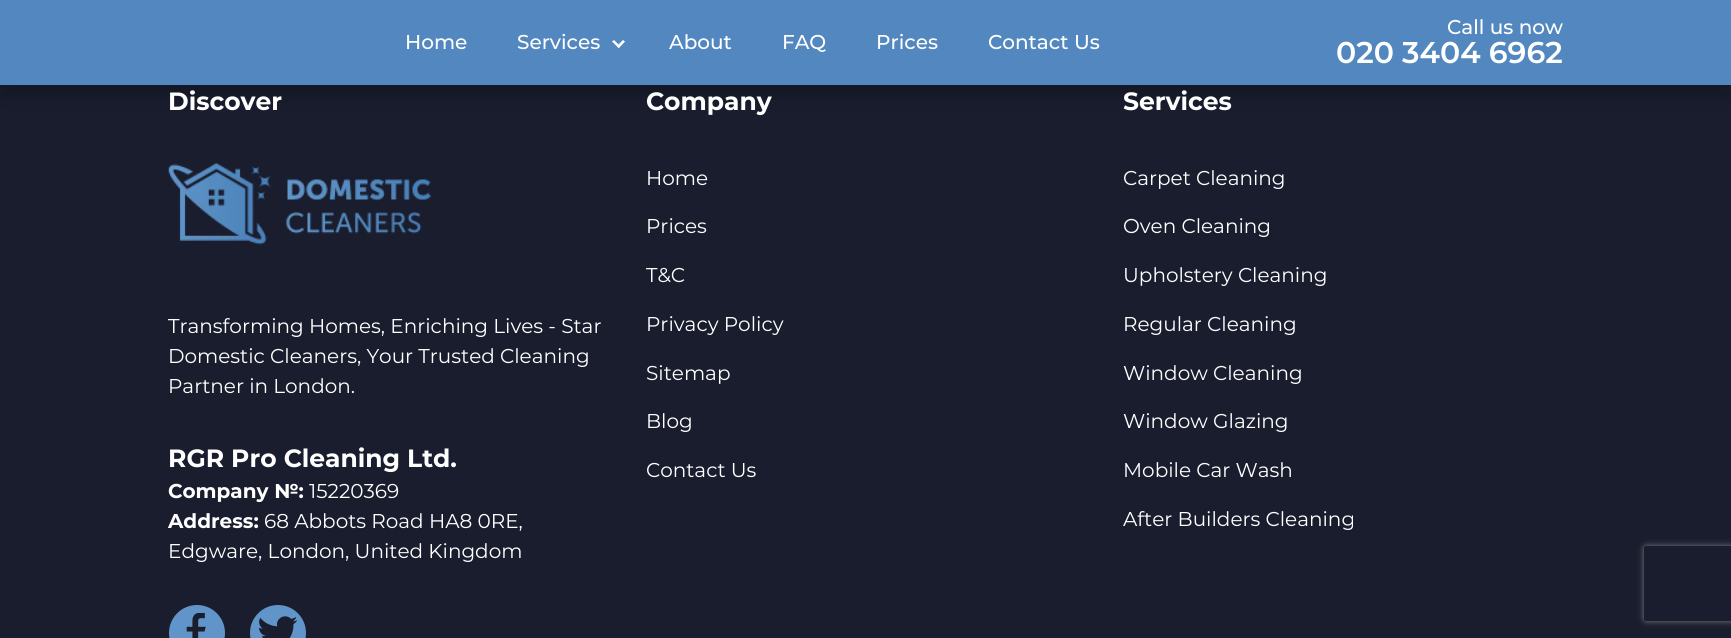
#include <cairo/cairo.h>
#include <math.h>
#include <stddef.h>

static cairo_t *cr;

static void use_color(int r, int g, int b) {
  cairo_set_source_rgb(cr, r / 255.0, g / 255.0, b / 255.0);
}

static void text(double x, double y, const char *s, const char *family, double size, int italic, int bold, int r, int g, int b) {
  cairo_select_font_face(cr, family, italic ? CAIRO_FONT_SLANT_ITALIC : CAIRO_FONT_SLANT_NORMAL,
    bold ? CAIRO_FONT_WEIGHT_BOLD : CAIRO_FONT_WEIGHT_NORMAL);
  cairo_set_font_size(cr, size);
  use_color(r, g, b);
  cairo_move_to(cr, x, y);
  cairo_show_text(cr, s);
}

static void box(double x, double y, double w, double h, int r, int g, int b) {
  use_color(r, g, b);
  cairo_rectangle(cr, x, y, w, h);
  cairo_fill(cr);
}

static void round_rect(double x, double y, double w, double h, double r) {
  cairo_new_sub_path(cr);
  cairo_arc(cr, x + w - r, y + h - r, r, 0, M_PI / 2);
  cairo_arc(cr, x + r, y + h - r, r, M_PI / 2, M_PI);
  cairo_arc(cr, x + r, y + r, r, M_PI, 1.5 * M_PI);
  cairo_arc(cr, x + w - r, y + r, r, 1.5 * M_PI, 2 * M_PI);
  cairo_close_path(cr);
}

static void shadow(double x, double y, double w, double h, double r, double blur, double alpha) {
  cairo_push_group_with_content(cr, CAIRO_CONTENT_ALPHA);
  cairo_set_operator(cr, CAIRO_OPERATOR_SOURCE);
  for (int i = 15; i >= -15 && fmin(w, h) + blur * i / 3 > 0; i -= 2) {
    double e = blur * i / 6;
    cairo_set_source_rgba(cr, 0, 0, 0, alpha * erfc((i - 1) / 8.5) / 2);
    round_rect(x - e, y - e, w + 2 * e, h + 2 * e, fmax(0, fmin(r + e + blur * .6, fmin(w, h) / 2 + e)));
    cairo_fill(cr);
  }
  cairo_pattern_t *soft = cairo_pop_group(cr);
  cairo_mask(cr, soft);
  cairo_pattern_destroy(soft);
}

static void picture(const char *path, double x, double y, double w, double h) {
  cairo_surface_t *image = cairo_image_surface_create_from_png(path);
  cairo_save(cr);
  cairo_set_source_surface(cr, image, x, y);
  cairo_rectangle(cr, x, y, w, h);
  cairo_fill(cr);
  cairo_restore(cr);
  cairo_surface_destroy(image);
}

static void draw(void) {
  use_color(25, 29, 46);
  cairo_paint(cr);
  use_color(0, 0, 0);
  shadow(0, 13, 1731, 85, 0, 9.5, 0.2);
  box(0, 0, 1731, 85, 82, 136, 191);
  use_color(255, 255, 255);
  cairo_new_path(cr);
  cairo_move_to(cr, 612, 41.5);
  cairo_line_to(cr, 614, 40);
  cairo_line_to(cr, 620, 46);
  cairo_line_to(cr, 618.5, 48);
  cairo_close_path(cr);
  cairo_fill(cr);
  cairo_new_path(cr);
  cairo_move_to(cr, 623, 40);
  cairo_line_to(cr, 625, 41.5);
  cairo_line_to(cr, 619, 48);
  cairo_line_to(cr, 617, 46);
  cairo_close_path(cr);
  cairo_fill(cr);
  picture("img_01.png", 168, 163, 264, 82);
  use_color(97, 149, 201);
  cairo_arc(cr, 197, 633, 28, 0, 2 * M_PI);
  cairo_fill(cr);
  picture("img_02.png", 186, 613, 20, 25);
  cairo_arc(cr, 278, 633, 28, 0, 2 * M_PI);
  cairo_fill(cr);
  picture("img_03.png", 259, 616, 39, 22);
  cairo_save(cr);
  cairo_set_fill_rule(cr, CAIRO_FILL_RULE_EVEN_ODD);
  cairo_new_path(cr);
  cairo_move_to(cr, 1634, 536);
  cairo_line_to(cr, 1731, 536);
  cairo_line_to(cr, 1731, 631);
  cairo_line_to(cr, 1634, 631);
  cairo_close_path(cr);
  cairo_move_to(cr, 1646.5, 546);
  cairo_line_to(cr, 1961.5, 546);
  cairo_curve_to(cr, 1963, 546, 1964, 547, 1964, 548.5);
  cairo_line_to(cr, 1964, 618.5);
  cairo_curve_to(cr, 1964, 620, 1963, 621, 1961.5, 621);
  cairo_line_to(cr, 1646.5, 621);
  cairo_curve_to(cr, 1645, 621, 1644, 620, 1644, 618.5);
  cairo_line_to(cr, 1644, 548.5);
  cairo_curve_to(cr, 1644, 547, 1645, 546, 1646.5, 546);
  cairo_close_path(cr);
  cairo_clip(cr);
  use_color(128, 128, 128);
  shadow(1644, 546, 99, 75, 2.5, 3, 1);
  cairo_restore(cr);
  text(405, 49, "Home", "Montserrat Medium", 20, 0, 0, 255, 255, 255);
  text(517, 49, "Services", "Montserrat Medium", 20, 0, 0, 255, 255, 255);
  text(669, 49, "About", "Montserrat Medium", 20, 0, 0, 255, 255, 255);
  text(782, 49, "FAQ", "Montserrat Medium", 20, 0, 0, 255, 255, 255);
  text(876, 49, "Prices", "Montserrat Medium", 20, 0, 0, 255, 255, 255);
  text(988, 49, "Contact Us", "Montserrat Medium", 20, 0, 0, 255, 255, 255);
  text(1447, 34, "Call us now", "Montserrat Medium", 20, 0, 0, 255, 255, 255);
  text(1336, 63, "020 3404 6962", "Montserrat SemiBold", 30, 0, 0, 255, 255, 255);
  text(168, 110, "Discover", "Montserrat", 25, 0, 1, 255, 255, 255);
  text(168, 333, "Transforming Homes, Enriching Lives - Star", "Montserrat", 20, 0, 0, 255, 255, 255);
  text(168, 363, "Domestic Cleaners, Your Trusted Cleaning", "Montserrat", 20, 0, 0, 255, 255, 255);
  text(168, 393, "Partner in London.", "Montserrat", 20, 0, 0, 255, 255, 255);
  text(168, 467, "RGR Pro Cleaning Ltd.", "Montserrat", 25, 0, 1, 255, 255, 255);
  text(168, 498, "Company №:", "Montserrat", 20, 0, 1, 255, 255, 255);
  text(309, 498, "15220369", "Montserrat", 20, 0, 0, 255, 255, 255);
  text(168, 528, "Address:", "Montserrat", 20, 0, 1, 255, 255, 255);
  text(264, 528, "68 Abbots Road HA8 0RE,", "Montserrat", 20, 0, 0, 255, 255, 255);
  text(168, 558, "Edgware, London, United Kingdom", "Montserrat", 20, 0, 0, 255, 255, 255);
  text(646, 110, "Company", "Montserrat", 25, 0, 1, 255, 255, 255);
  text(646, 185, "Home", "Montserrat", 20, 0, 0, 255, 255, 255);
  text(646, 233, "Prices", "Montserrat", 20, 0, 0, 255, 255, 255);
  text(646, 282, "T&C", "Montserrat", 20, 0, 0, 255, 255, 255);
  text(646, 331, "Privacy Policy", "Montserrat", 20, 0, 0, 255, 255, 255);
  text(646, 380, "Sitemap", "Montserrat", 20, 0, 0, 255, 255, 255);
  text(646, 428, "Blog", "Montserrat", 20, 0, 0, 255, 255, 255);
  text(646, 477, "Contact Us", "Montserrat", 20, 0, 0, 255, 255, 255);
  text(1123, 110, "Services", "Montserrat", 25, 0, 1, 255, 255, 255);
  text(1123, 185, "Carpet Cleaning", "Montserrat", 20, 0, 0, 255, 255, 255);
  text(1123, 233, "Oven Cleaning", "Montserrat", 20, 0, 0, 255, 255, 255);
  text(1123, 282, "Upholstery Cleaning", "Montserrat", 20, 0, 0, 255, 255, 255);
  text(1123, 331, "Regular Cleaning", "Montserrat", 20, 0, 0, 255, 255, 255);
  text(1123, 380, "Window Cleaning", "Montserrat", 20, 0, 0, 255, 255, 255);
  text(1123, 428, "Window Glazing", "Montserrat", 20, 0, 0, 255, 255, 255);
  text(1123, 477, "Mobile Car Wash", "Montserrat", 20, 0, 0, 255, 255, 255);
  text(1123, 526, "After Builders Cleaning", "Montserrat", 20, 0, 0, 255, 255, 255);
}

int main(void) {
  cairo_surface_t *surface = cairo_image_surface_create(CAIRO_FORMAT_RGB24, 1731, 638);
  cr = cairo_create(surface);
  cairo_font_options_t *options = cairo_font_options_create();
  cairo_font_options_set_hint_metrics(options, CAIRO_HINT_METRICS_OFF);
  cairo_font_options_set_hint_style(options, CAIRO_HINT_STYLE_NONE);
  cairo_set_font_options(cr, options);
  cairo_set_miter_limit(cr, 4);
  draw();
  cairo_surface_write_to_png(surface, "out.png");
  cairo_font_options_destroy(options);
  cairo_destroy(cr);
  cairo_surface_destroy(surface);
  return 0;
}
